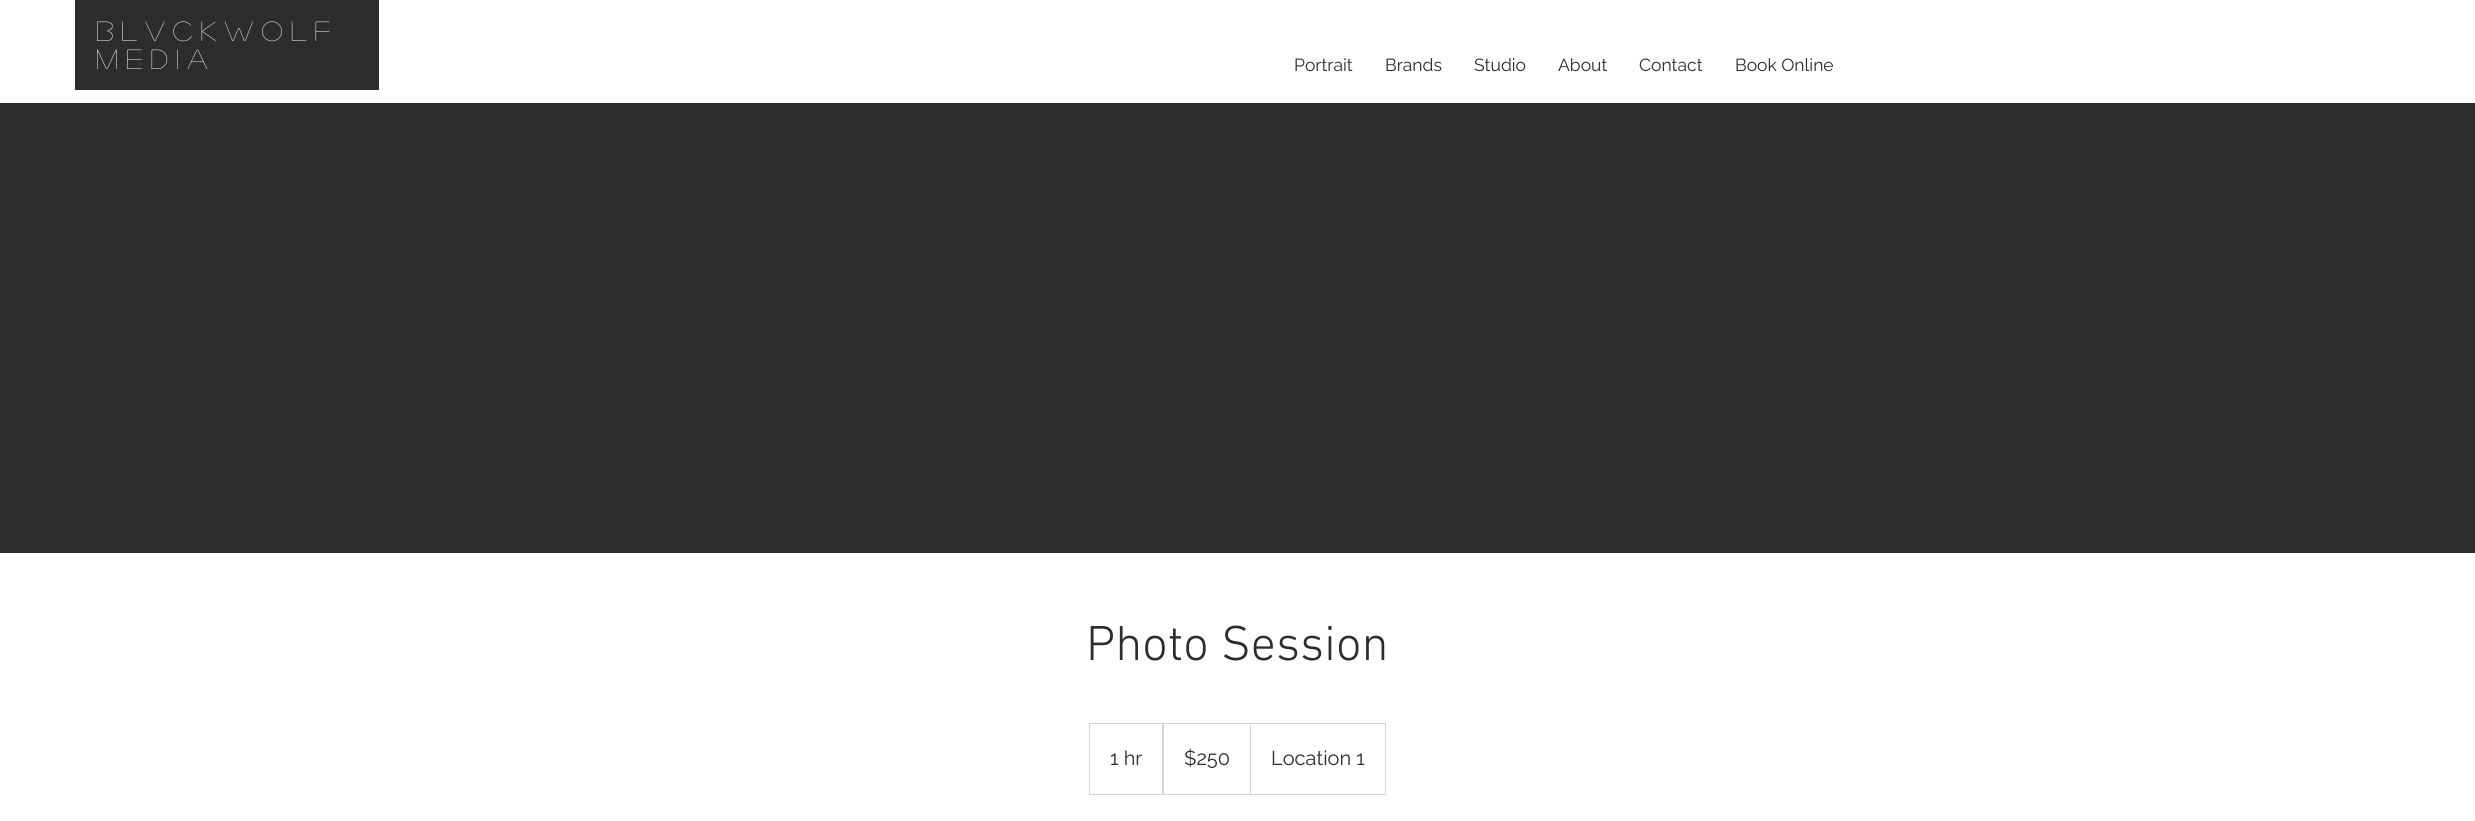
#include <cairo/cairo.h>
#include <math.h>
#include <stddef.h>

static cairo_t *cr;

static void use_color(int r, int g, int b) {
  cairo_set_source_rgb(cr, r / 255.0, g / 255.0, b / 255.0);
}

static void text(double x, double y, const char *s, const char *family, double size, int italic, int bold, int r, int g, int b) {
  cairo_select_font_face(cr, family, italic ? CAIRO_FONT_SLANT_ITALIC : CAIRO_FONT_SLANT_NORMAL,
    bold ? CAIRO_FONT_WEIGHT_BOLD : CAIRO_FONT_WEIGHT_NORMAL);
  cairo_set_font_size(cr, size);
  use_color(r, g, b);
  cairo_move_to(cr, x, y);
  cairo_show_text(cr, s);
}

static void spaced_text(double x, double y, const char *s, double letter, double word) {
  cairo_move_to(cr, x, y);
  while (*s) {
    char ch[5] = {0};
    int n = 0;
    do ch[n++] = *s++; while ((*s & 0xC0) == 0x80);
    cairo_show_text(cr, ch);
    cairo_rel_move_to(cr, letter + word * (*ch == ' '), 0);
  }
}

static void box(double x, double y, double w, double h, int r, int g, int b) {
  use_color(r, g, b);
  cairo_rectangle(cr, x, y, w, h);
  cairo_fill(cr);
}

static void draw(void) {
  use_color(255, 255, 255);
  cairo_paint(cr);
  box(75, 0, 304, 90, 44, 44, 43);
  box(0, 103, 2475, 450, 44, 44, 43);
  cairo_rectangle(cr, 1089.5, 723.5, 296, 71);
  use_color(213, 213, 213);
  cairo_set_line_width(cr, 1);
  cairo_stroke(cr);
  cairo_save(cr);
  cairo_rectangle(cr, 1090, 724, 295, 70);
  cairo_clip(cr);
  cairo_new_path(cr);
  cairo_move_to(cr, 1162, 794);
  cairo_line_to(cr, 1162, 722);
  cairo_line_to(cr, 1164, 724);
  cairo_line_to(cr, 1164, 794);
  cairo_close_path(cr);
  cairo_fill(cr);
  cairo_restore(cr);
  cairo_new_path(cr);
  cairo_move_to(cr, 1250, 794);
  cairo_line_to(cr, 1250, 722);
  cairo_line_to(cr, 1251, 724);
  cairo_line_to(cr, 1251, 794);
  cairo_close_path(cr);
  cairo_fill(cr);
  cairo_select_font_face(cr, "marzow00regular", CAIRO_FONT_SLANT_NORMAL, CAIRO_FONT_WEIGHT_NORMAL);
  cairo_set_font_size(cr, 27.5);
  use_color(255, 255, 255);
  spaced_text(96, 41, "BlvckWolf", 8.25, 0);
  spaced_text(96, 69, "Media", 8.25, 0);
  text(1294, 71, "Portrait", "Raleway", 17.5, 0, 0, 44, 44, 43);
  text(1385, 71, "Brands", "Raleway", 17.5, 0, 0, 44, 44, 43);
  text(1474, 71, "Studio", "Raleway", 17.5, 0, 0, 44, 44, 43);
  text(1558, 71, "About", "Raleway", 17.5, 0, 0, 44, 44, 43);
  text(1639, 71, "Contact", "Raleway", 17.5, 0, 0, 44, 44, 43);
  text(1735, 71, "Book Online", "Raleway", 17.5, 0, 0, 44, 44, 43);
  text(1086, 660, "Photo Session", "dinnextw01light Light", 50, 0, 0, 44, 44, 43);
  text(1110, 765, "1 hr", "Raleway", 20, 0, 0, 44, 44, 43);
  text(1184, 765, "$250", "Raleway", 20, 0, 0, 44, 44, 43);
  text(1271, 765, "Location 1", "Raleway", 20, 0, 0, 44, 44, 43);
}

int main(void) {
  cairo_surface_t *surface = cairo_image_surface_create(CAIRO_FORMAT_RGB24, 2475, 821);
  cr = cairo_create(surface);
  cairo_font_options_t *options = cairo_font_options_create();
  cairo_font_options_set_hint_metrics(options, CAIRO_HINT_METRICS_OFF);
  cairo_font_options_set_hint_style(options, CAIRO_HINT_STYLE_NONE);
  cairo_set_font_options(cr, options);
  cairo_set_miter_limit(cr, 4);
  draw();
  cairo_surface_write_to_png(surface, "out.png");
  cairo_font_options_destroy(options);
  cairo_destroy(cr);
  cairo_surface_destroy(surface);
  return 0;
}
